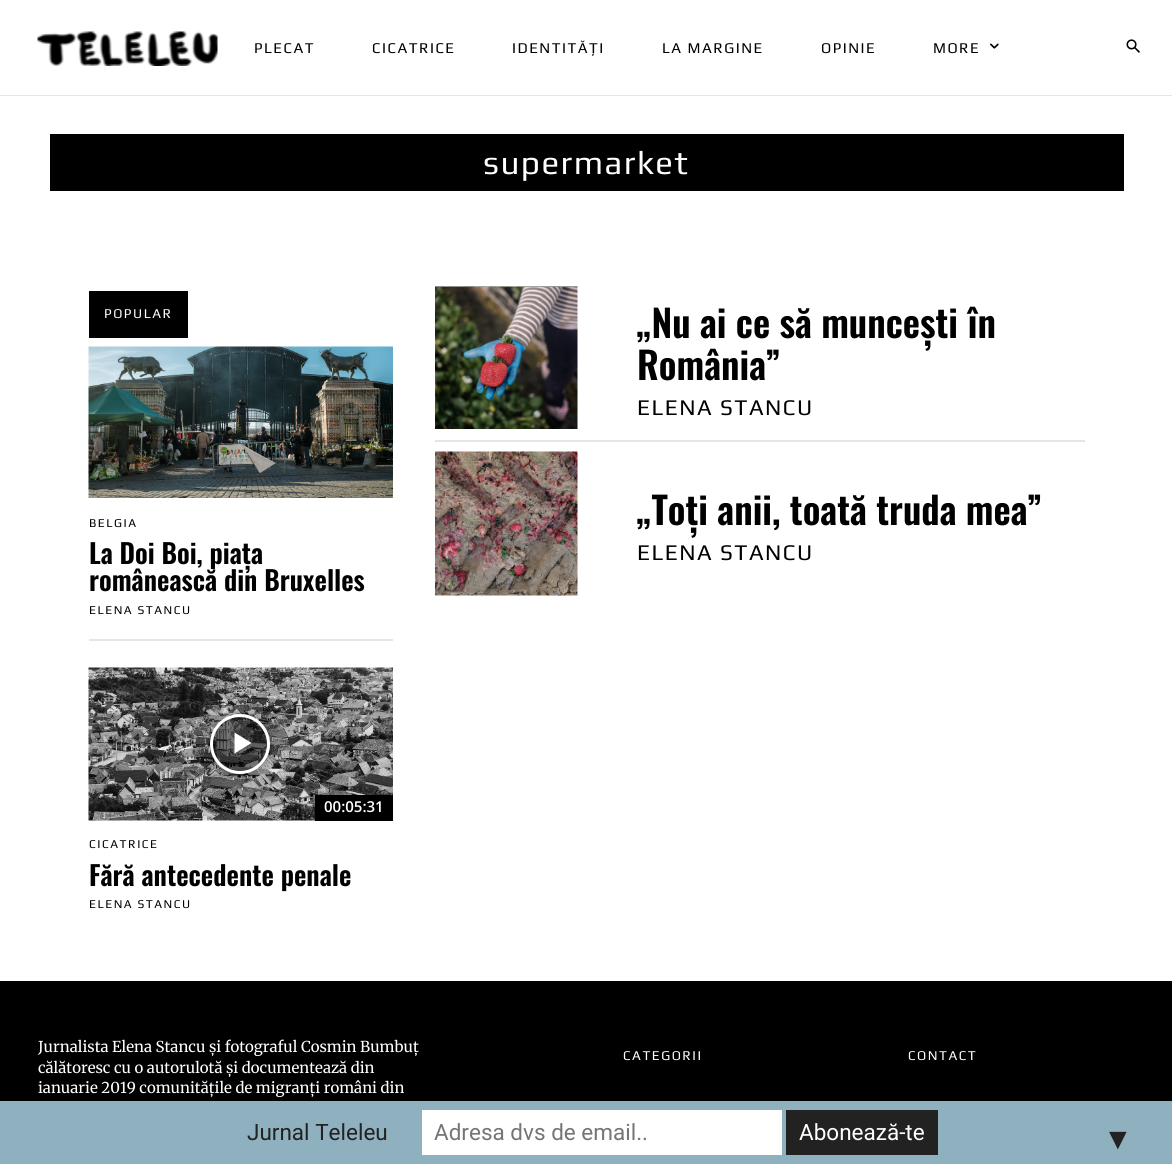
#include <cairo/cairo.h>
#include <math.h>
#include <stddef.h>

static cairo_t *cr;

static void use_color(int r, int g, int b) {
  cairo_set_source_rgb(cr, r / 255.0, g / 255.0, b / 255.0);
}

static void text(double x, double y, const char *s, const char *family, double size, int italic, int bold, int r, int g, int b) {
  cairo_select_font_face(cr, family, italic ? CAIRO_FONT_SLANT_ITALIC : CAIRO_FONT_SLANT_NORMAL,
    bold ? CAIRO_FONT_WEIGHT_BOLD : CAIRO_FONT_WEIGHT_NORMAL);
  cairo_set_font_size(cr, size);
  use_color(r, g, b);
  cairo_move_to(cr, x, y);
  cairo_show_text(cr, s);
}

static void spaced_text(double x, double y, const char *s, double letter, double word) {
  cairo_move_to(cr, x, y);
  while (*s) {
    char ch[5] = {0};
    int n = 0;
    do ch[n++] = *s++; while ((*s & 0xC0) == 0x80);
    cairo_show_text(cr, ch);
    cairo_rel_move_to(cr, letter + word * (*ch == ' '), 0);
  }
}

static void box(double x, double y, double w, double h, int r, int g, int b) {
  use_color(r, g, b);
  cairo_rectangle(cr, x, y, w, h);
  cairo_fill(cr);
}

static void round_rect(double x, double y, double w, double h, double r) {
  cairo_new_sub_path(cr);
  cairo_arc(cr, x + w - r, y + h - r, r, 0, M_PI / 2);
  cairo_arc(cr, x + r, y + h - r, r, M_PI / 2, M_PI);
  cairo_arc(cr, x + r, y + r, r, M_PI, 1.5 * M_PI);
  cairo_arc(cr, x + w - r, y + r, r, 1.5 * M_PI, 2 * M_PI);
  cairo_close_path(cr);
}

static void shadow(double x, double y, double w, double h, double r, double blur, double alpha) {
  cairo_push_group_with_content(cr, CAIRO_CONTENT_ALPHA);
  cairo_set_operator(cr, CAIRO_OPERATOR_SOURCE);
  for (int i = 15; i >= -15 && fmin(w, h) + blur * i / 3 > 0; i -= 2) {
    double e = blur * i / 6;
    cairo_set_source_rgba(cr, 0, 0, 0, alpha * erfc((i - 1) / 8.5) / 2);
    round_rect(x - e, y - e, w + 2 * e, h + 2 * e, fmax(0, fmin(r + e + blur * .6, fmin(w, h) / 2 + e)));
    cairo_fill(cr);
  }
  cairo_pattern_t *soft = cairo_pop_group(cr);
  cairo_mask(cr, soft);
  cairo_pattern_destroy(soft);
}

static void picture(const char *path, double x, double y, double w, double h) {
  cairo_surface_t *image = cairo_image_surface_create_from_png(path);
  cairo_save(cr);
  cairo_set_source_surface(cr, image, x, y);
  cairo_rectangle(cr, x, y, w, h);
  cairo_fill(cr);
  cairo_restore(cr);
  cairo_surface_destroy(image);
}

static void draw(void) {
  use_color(255, 255, 255);
  cairo_paint(cr);
  picture("img_01.png", 37, 31, 181, 35);
  picture("img_02.png", 990, 43, 9, 6);
  picture("img_03.png", 1126, 39, 14, 14);
  box(0, 95, 1172, 1, 229, 229, 229);
  box(50, 134, 1074, 57, 0, 0, 0);
  box(89, 291, 99, 47, 0, 0, 0);
  picture("img_04.png", 88, 346, 305, 152);
  box(89, 639, 304, 2, 229, 229, 229);
  picture("img_05.png", 88, 667, 305, 154);
  cairo_save(cr);
  cairo_set_fill_rule(cr, CAIRO_FILL_RULE_EVEN_ODD);
  cairo_new_path(cr);
  cairo_move_to(cr, 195, 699);
  cairo_line_to(cr, 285, 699);
  cairo_line_to(cr, 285, 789);
  cairo_line_to(cr, 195, 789);
  cairo_close_path(cr);
  cairo_move_to(cr, 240, 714);
  cairo_curve_to(cr, 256.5, 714, 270, 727.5, 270, 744);
  cairo_curve_to(cr, 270, 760.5, 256.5, 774, 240, 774);
  cairo_curve_to(cr, 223.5, 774, 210, 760.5, 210, 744);
  cairo_curve_to(cr, 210, 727.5, 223.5, 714, 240, 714);
  cairo_close_path(cr);
  cairo_clip(cr);
  use_color(0, 0, 0);
  shadow(210, 714, 60, 60, 30, 4.5, 0.4);
  cairo_restore(cr);
  cairo_set_source_rgba(cr, 0, 0, 0, 0.48);
  cairo_arc(cr, 240, 744, 28.5, 0, 2 * M_PI);
  cairo_fill_preserve(cr);
  use_color(255, 255, 255);
  cairo_set_line_width(cr, 3);
  cairo_stroke(cr);
  cairo_new_path(cr);
  cairo_move_to(cr, 234.5, 732.5);
  cairo_line_to(cr, 234.5, 753.5);
  cairo_line_to(cr, 251.5, 743);
  cairo_close_path(cr);
  cairo_fill(cr);
  box(315, 795, 78, 26, 0, 0, 0);
  picture("img_06.png", 435, 286, 143, 143);
  box(435, 440, 650, 2, 229, 229, 229);
  picture("img_07.png", 435, 451, 143, 145);
  box(0, 981, 1172, 120, 0, 0, 0);
  box(0, 1101, 1172, 63, 143, 176, 191);
  box(422, 1110, 360, 45, 255, 255, 255);
  box(786, 1110, 152, 45, 34, 34, 34);
  cairo_select_font_face(cr, "Play", CAIRO_FONT_SLANT_NORMAL, CAIRO_FONT_WEIGHT_NORMAL);
  cairo_set_font_size(cr, 15);
  use_color(0, 0, 0);
  spaced_text(254, 53, "PLECAT", 1.5, 0);
  spaced_text(372, 53, "CICATRICE", 1.5, 0);
  spaced_text(512, 53, "IDENTITĂȚI", 1.5, 0);
  spaced_text(662, 53, "LA MARGINE", 1.5, 0);
  spaced_text(821, 53, "OPINIE", 1.5, 0);
  spaced_text(933, 53, "MORE", 1.5, 0);
  cairo_set_font_size(cr, 33);
  use_color(255, 255, 255);
  spaced_text(483, 174, "supermarket", 1.5, 0);
  cairo_set_font_size(cr, 13.5);
  spaced_text(104, 318, "POPULAR", 1.5, 0);
  cairo_set_font_size(cr, 12);
  use_color(0, 0, 0);
  spaced_text(89, 527, "BELGIA", 1.5, 0);
  text(89, 564, "La Doi Boi, piața", "Oswald SemiBold", 27, 0, 0, 0, 0, 0);
  text(89, 591, "românească din Bruxelles", "Oswald SemiBold", 27, 0, 0, 0, 0, 0);
  cairo_select_font_face(cr, "Play", CAIRO_FONT_SLANT_NORMAL, CAIRO_FONT_WEIGHT_NORMAL);
  cairo_set_font_size(cr, 12);
  spaced_text(89, 614, "ELENA STANCU", 1.5, 0);
  text(324, 812, "00:05:31", "Open Sans SemiBold", 15, 0, 0, 255, 255, 255);
  cairo_select_font_face(cr, "Play", CAIRO_FONT_SLANT_NORMAL, CAIRO_FONT_WEIGHT_NORMAL);
  cairo_set_font_size(cr, 12);
  use_color(0, 0, 0);
  spaced_text(89, 848, "CICATRICE", 1.5, 0);
  text(89, 886, "Fără antecedente penale", "Oswald SemiBold", 27, 0, 0, 0, 0, 0);
  cairo_select_font_face(cr, "Play", CAIRO_FONT_SLANT_NORMAL, CAIRO_FONT_WEIGHT_NORMAL);
  cairo_set_font_size(cr, 12);
  spaced_text(89, 908, "ELENA STANCU", 1.5, 0);
  text(637, 338, "„Nu ai ce să muncești în", "Oswald SemiBold", 37.5, 0, 0, 0, 0, 0);
  text(637, 380, "România”", "Oswald SemiBold", 37.5, 0, 0, 0, 0, 0);
  cairo_select_font_face(cr, "Play", CAIRO_FONT_SLANT_NORMAL, CAIRO_FONT_WEIGHT_NORMAL);
  cairo_set_font_size(cr, 22.5);
  spaced_text(637, 415, "ELENA STANCU", 1.5, 0);
  text(637, 525, "„Toți anii, toată truda mea”", "Oswald SemiBold", 37.5, 0, 0, 0, 0, 0);
  cairo_select_font_face(cr, "Play", CAIRO_FONT_SLANT_NORMAL, CAIRO_FONT_WEIGHT_NORMAL);
  cairo_set_font_size(cr, 22.5);
  spaced_text(637, 560, "ELENA STANCU", 1.5, 0);
  text(38, 1052, "Jurnalista Elena Stancu și fotograful Cosmin Bumbuț", "Merriweather Light", 15, 0, 0, 255, 255, 255);
  text(38, 1073, "călătoresc cu o autorulotă și documentează din", "Merriweather Light", 15, 0, 0, 255, 255, 255);
  text(38, 1093, "ianuarie 2019 comunitățile de migranți români din", "Merriweather Light", 15, 0, 0, 255, 255, 255);
  cairo_select_font_face(cr, "Play", CAIRO_FONT_SLANT_NORMAL, CAIRO_FONT_WEIGHT_NORMAL);
  cairo_set_font_size(cr, 13.5);
  spaced_text(623, 1060, "CATEGORII", 1.5, 0);
  spaced_text(908, 1060, "CONTACT", 1.5, 0);
  text(247, 1140, "Jurnal Teleleu", "Roboto", 22.5, 0, 0, 34, 34, 34);
  text(434, 1140, "Adresa dvs de email..", "Roboto", 22.5, 0, 0, 117, 117, 117);
  text(799, 1140, "Abonează-te", "Roboto", 22.5, 0, 0, 255, 255, 255);
  text(1103, 1149, "▼", "Liberation Sans", 30, 0, 0, 34, 34, 34);
}

int main(void) {
  cairo_surface_t *surface = cairo_image_surface_create(CAIRO_FORMAT_RGB24, 1172, 1164);
  cr = cairo_create(surface);
  cairo_font_options_t *options = cairo_font_options_create();
  cairo_font_options_set_hint_metrics(options, CAIRO_HINT_METRICS_OFF);
  cairo_font_options_set_hint_style(options, CAIRO_HINT_STYLE_NONE);
  cairo_set_font_options(cr, options);
  cairo_set_miter_limit(cr, 4);
  draw();
  cairo_surface_write_to_png(surface, "out.png");
  cairo_font_options_destroy(options);
  cairo_destroy(cr);
  cairo_surface_destroy(surface);
  return 0;
}
